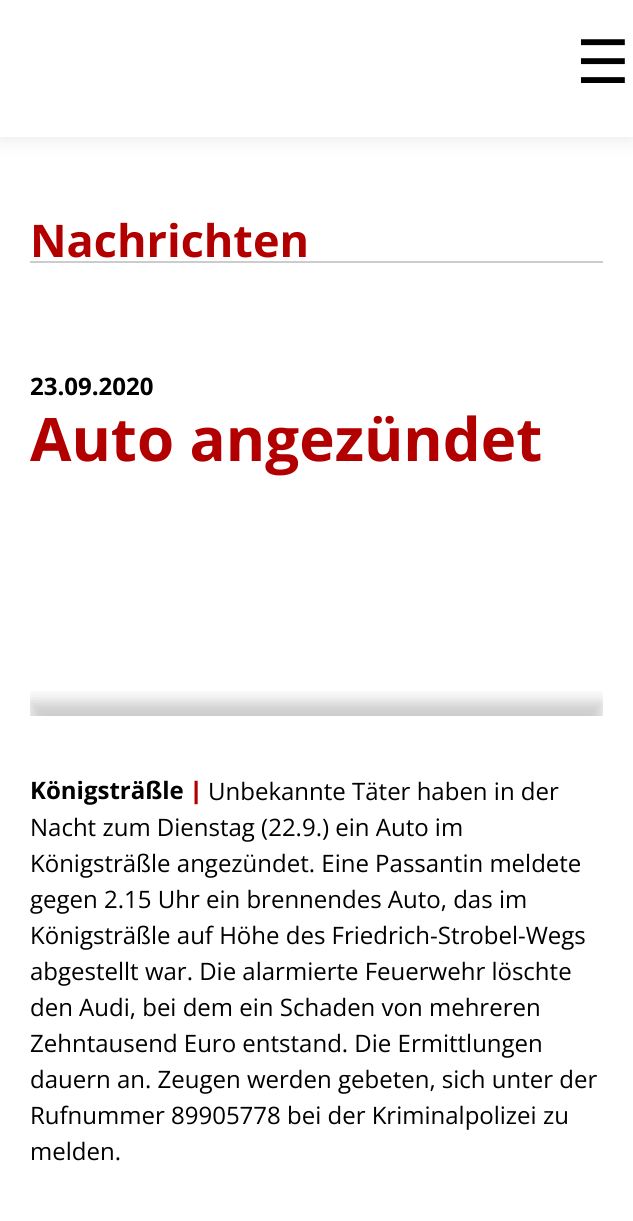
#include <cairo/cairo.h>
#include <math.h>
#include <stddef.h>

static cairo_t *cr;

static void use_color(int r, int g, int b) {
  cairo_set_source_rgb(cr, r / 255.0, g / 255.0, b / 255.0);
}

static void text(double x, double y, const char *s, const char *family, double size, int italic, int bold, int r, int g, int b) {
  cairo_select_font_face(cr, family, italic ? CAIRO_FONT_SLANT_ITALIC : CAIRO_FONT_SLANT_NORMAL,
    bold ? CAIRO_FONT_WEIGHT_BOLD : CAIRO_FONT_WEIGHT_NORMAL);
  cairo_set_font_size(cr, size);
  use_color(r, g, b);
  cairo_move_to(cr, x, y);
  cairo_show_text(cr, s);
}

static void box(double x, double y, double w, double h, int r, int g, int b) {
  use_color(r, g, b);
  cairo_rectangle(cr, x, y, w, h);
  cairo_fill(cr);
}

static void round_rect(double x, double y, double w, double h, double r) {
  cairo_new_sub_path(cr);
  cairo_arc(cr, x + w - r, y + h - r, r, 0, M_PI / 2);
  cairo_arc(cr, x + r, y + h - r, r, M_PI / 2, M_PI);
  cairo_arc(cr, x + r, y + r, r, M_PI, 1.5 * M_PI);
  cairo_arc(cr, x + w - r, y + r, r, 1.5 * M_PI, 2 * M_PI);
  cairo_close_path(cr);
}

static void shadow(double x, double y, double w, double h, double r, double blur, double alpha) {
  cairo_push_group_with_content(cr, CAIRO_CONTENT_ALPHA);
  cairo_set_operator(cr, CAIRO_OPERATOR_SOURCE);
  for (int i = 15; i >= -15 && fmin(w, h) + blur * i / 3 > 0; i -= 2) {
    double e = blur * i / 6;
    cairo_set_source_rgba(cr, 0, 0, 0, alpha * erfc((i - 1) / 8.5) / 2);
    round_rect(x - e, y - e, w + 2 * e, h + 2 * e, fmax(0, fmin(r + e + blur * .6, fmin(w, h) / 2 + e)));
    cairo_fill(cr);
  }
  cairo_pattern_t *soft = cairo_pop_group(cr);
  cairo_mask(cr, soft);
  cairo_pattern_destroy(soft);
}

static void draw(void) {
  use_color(255, 255, 255);
  cairo_paint(cr);
  use_color(0, 0, 0);
  shadow(0, -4, 633, 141, 0, 11, 0.1);
  box(0, 0, 633, 137, 255, 255, 255);
  box(30, 261, 573, 2, 204, 204, 204);
  cairo_save(cr);
  cairo_rectangle(cr, 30, 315, 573, 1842);
  cairo_clip(cr);
  cairo_rectangle(cr, 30, 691, 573, 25);
  cairo_clip(cr);
  use_color(0, 0, 0);
  shadow(30, 701, 573, 490, 0, 7.5, 0.2);
  cairo_restore(cr);
  text(576, 83, "☰", "DejaVu Sans", 60, 0, 0, 0, 0, 0);
  text(30, 257, "Nachrichten", "Open Sans", 45, 0, 1, 178, 0, 0);
  text(30, 395, "23.09.2020", "Open Sans", 24, 0, 1, 0, 0, 0);
  text(30, 461, "Auto angezündet", "Open Sans", 60, 0, 1, 178, 0, 0);
  text(30, 799, "Königsträßle", "Open Sans", 24, 0, 1, 0, 0, 0);
  text(190, 799, "|", "Open Sans ExtraBold", 24, 0, 0, 178, 0, 0);
  text(208, 800, "Unbekannte Täter haben in der", "Open Sans", 24, 0, 0, 0, 0, 0);
  text(30, 836, "Nacht zum Dienstag (22.9.) ein Auto im", "Open Sans", 24, 0, 0, 0, 0, 0);
  text(30, 872, "Königsträßle angezündet. Eine Passantin meldete", "Open Sans", 24, 0, 0, 0, 0, 0);
  text(30, 908, "gegen 2.15 Uhr ein brennendes Auto, das im", "Open Sans", 24, 0, 0, 0, 0, 0);
  text(30, 944, "Königsträßle auf Höhe des Friedrich-Strobel-Wegs", "Open Sans", 24, 0, 0, 0, 0, 0);
  text(30, 980, "abgestellt war. Die alarmierte Feuerwehr löschte", "Open Sans", 24, 0, 0, 0, 0, 0);
  text(30, 1016, "den Audi, bei dem ein Schaden von mehreren", "Open Sans", 24, 0, 0, 0, 0, 0);
  text(30, 1052, "Zehntausend Euro entstand. Die Ermittlungen", "Open Sans", 24, 0, 0, 0, 0, 0);
  text(30, 1088, "dauern an. Zeugen werden gebeten, sich unter der", "Open Sans", 24, 0, 0, 0, 0, 0);
  text(30, 1124, "Rufnummer 89905778 bei der Kriminalpolizei zu", "Open Sans", 24, 0, 0, 0, 0, 0);
  text(30, 1160, "melden.", "Open Sans", 24, 0, 0, 0, 0, 0);
}

int main(void) {
  cairo_surface_t *surface = cairo_image_surface_create(CAIRO_FORMAT_RGB24, 633, 1221);
  cr = cairo_create(surface);
  cairo_font_options_t *options = cairo_font_options_create();
  cairo_font_options_set_hint_metrics(options, CAIRO_HINT_METRICS_OFF);
  cairo_font_options_set_hint_style(options, CAIRO_HINT_STYLE_NONE);
  cairo_set_font_options(cr, options);
  cairo_set_miter_limit(cr, 4);
  draw();
  cairo_surface_write_to_png(surface, "out.png");
  cairo_font_options_destroy(options);
  cairo_destroy(cr);
  cairo_surface_destroy(surface);
  return 0;
}
